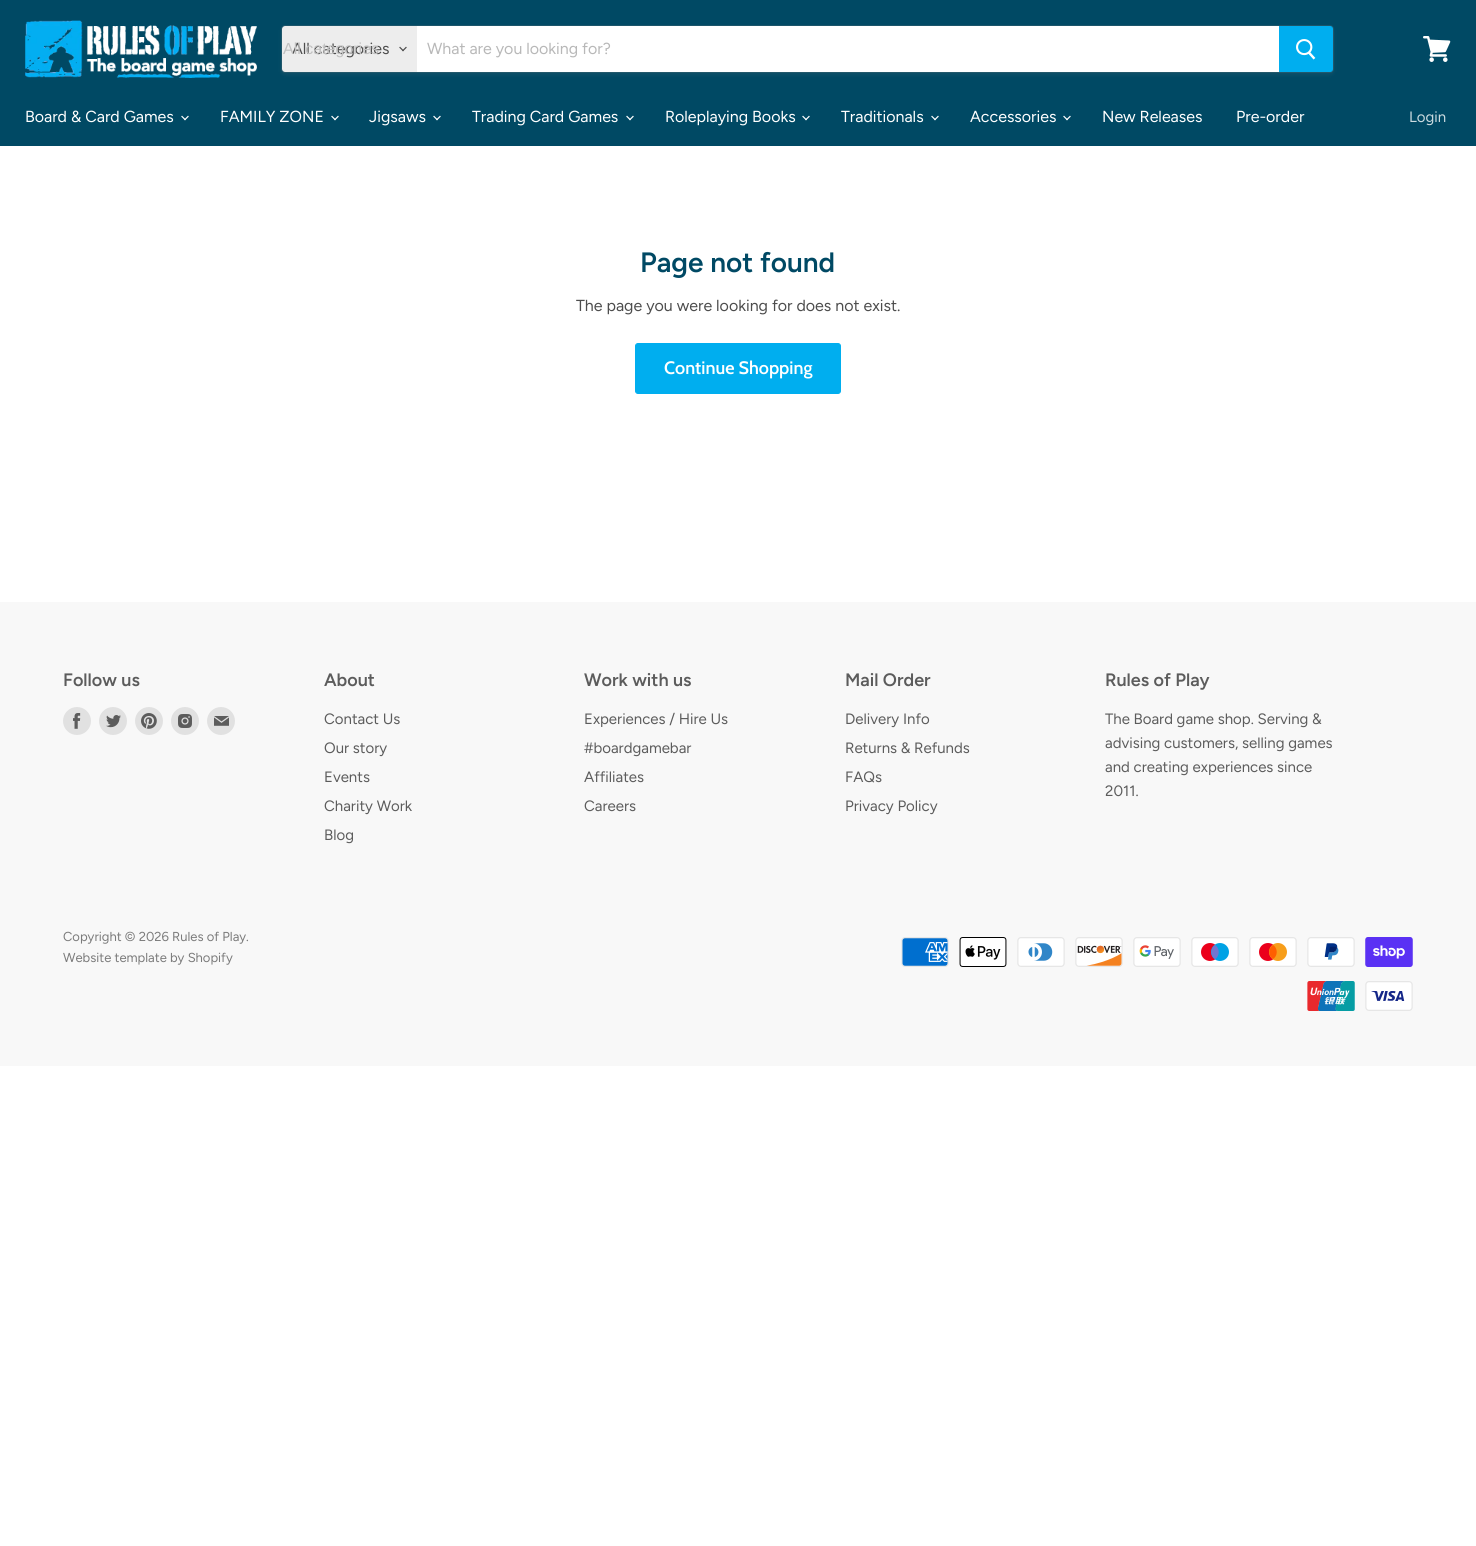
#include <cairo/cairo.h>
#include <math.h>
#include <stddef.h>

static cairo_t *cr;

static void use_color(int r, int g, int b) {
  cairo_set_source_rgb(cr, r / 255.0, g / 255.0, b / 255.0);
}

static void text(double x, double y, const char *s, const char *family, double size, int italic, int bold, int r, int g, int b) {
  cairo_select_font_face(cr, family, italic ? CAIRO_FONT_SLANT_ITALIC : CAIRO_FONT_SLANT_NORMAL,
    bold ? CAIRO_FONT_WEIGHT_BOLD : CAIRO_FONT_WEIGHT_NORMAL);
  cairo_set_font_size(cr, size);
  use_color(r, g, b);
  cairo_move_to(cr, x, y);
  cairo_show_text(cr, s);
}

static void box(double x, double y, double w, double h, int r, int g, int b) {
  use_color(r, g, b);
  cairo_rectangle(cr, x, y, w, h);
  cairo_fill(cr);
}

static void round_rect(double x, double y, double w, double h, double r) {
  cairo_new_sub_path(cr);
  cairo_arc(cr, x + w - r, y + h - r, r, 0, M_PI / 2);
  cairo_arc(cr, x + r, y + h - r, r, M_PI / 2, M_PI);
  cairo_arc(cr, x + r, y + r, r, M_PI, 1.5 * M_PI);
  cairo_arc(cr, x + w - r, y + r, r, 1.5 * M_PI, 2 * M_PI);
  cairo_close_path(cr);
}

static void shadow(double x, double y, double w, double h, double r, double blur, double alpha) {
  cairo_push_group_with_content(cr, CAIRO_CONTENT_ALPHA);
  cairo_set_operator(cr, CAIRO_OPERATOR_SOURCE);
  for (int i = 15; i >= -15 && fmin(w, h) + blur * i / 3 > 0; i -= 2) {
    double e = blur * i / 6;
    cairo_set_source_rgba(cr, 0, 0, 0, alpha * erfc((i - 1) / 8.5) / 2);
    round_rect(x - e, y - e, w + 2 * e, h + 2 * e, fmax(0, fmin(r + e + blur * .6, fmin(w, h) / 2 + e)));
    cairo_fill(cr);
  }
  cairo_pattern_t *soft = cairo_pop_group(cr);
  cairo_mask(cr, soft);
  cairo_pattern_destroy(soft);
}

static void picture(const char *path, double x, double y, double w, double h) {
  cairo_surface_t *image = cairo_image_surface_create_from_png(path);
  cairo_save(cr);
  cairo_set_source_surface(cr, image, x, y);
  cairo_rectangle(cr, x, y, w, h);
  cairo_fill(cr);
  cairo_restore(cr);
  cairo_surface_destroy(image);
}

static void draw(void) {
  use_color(255, 255, 255);
  cairo_paint(cr);
  box(0, 0, 1476, 146, 0, 73, 100);
  picture("img_01.png", 25, 20, 232, 58);
  use_color(128, 128, 128);
  shadow(281, 27, 1053, 48, 4, 1.5, 0.11);
  round_rect(281.5, 25.5, 1052, 47, 3.5);
  cairo_set_source_rgba(cr, 0.502, 0.502, 0.502, 0.2);
  cairo_set_line_width(cr, 1);
  cairo_stroke(cr);
  use_color(237, 237, 237);
  cairo_new_path(cr);
  cairo_move_to(cr, 285, 26);
  cairo_line_to(cr, 417, 26);
  cairo_line_to(cr, 417, 72);
  cairo_line_to(cr, 285, 72);
  cairo_curve_to(cr, 283.5, 72, 282, 70.5, 282, 69);
  cairo_line_to(cr, 282, 29);
  cairo_curve_to(cr, 282, 27.5, 283.5, 26, 285, 26);
  cairo_close_path(cr);
  cairo_fill(cr);
  picture("img_02.png", 399, 46, 8, 6);
  box(417, 26, 862, 46, 255, 255, 255);
  use_color(0, 174, 239);
  cairo_new_path(cr);
  cairo_move_to(cr, 1279.5, 26.5);
  cairo_line_to(cr, 1330, 26.5);
  cairo_curve_to(cr, 1331.5, 26.5, 1332.5, 27.5, 1332.5, 29);
  cairo_line_to(cr, 1332.5, 69);
  cairo_curve_to(cr, 1332.5, 70.5, 1331.5, 71.5, 1330, 71.5);
  cairo_line_to(cr, 1279.5, 71.5);
  cairo_close_path(cr);
  cairo_fill_preserve(cr);
  cairo_stroke(cr);
  picture("img_03.png", 1296, 39, 20, 21);
  picture("img_04.png", 1423, 36, 28, 26);
  picture("img_05.png", 181, 115, 8, 6);
  picture("img_05.png", 331, 115, 8, 6);
  picture("img_05.png", 433, 115, 8, 6);
  picture("img_05.png", 626, 115, 8, 6);
  picture("img_05.png", 802, 115, 8, 6);
  picture("img_05.png", 931, 115, 8, 6);
  picture("img_05.png", 1063, 115, 8, 6);
  round_rect(635.5, 343.5, 205, 50, 2.5);
  cairo_fill_preserve(cr);
  cairo_stroke(cr);
  box(0, 602, 1476, 464, 248, 248, 248);
  use_color(225, 225, 225);
  cairo_arc(cr, 77, 721, 14, 0, 2 * M_PI);
  cairo_fill(cr);
  picture("img_06.png", 73, 713, 8, 16);
  cairo_arc(cr, 113, 721, 14, 0, 2 * M_PI);
  cairo_fill(cr);
  picture("img_07.png", 106, 715, 15, 13);
  cairo_arc(cr, 149, 721, 14, 0, 2 * M_PI);
  cairo_fill(cr);
  picture("img_08.png", 141, 713, 16, 16);
  cairo_arc(cr, 185, 721, 14, 0, 2 * M_PI);
  cairo_fill(cr);
  picture("img_09.png", 178, 714, 14, 14);
  cairo_arc(cr, 221, 721, 14, 0, 2 * M_PI);
  cairo_fill(cr);
  picture("img_10.png", 214, 716, 15, 10);
  picture("img_11.png", 901, 937, 48, 30);
  picture("img_12.png", 959, 937, 48, 30);
  picture("img_13.png", 1017, 937, 48, 30);
  picture("img_14.png", 1075, 937, 48, 30);
  picture("img_15.png", 1133, 937, 48, 30);
  picture("img_16.png", 1191, 937, 48, 30);
  picture("img_17.png", 1249, 937, 48, 30);
  picture("img_18.png", 1307, 937, 48, 30);
  picture("img_19.png", 1365, 937, 48, 30);
  picture("img_20.png", 1307, 981, 48, 30);
  picture("img_21.png", 1365, 981, 48, 30);
  text(292, 54, "All categories", "Figtree", 16, 0, 0, 77, 77, 77);
  text(283, 54, "All categories", "Liberation Sans", 16, 0, 0, 193, 193, 193);
  text(427, 54, "What are you looking for?", "Figtree", 16, 0, 0, 184, 184, 184);
  text(25, 122, "Board & Card Games", "Figtree", 16, 0, 0, 255, 255, 255);
  text(220, 122, "FAMILY ZONE", "Figtree", 16, 0, 0, 255, 255, 255);
  text(369, 122, "Jigsaws", "Figtree", 16, 0, 0, 255, 255, 255);
  text(472, 122, "Trading Card Games", "Figtree", 16, 0, 0, 255, 255, 255);
  text(665, 122, "Roleplaying Books", "Figtree", 16, 0, 0, 255, 255, 255);
  text(841, 122, "Traditionals", "Figtree", 16, 0, 0, 255, 255, 255);
  text(970, 122, "Accessories", "Figtree", 16, 0, 0, 255, 255, 255);
  text(1102, 122, "New Releases", "Figtree", 16, 0, 0, 255, 255, 255);
  text(1236, 122, "Pre-order", "Figtree", 16, 0, 0, 255, 255, 255);
  text(1409, 122, "Login", "Figtree", 15, 0, 0, 204, 219, 224);
  text(640, 272, "Page not found", "Figtree SemiBold", 28, 0, 0, 0, 73, 100);
  text(576, 311, "The page you were looking for does not exist.", "Figtree", 16, 0, 0, 77, 77, 77);
  text(664, 374, "Continue Shopping", "Cabin SemiBold", 18, 0, 0, 255, 255, 255);
  text(63, 686, "Follow us", "Figtree SemiBold", 18, 0, 0, 92, 92, 92);
  text(324, 686, "About", "Figtree SemiBold", 18, 0, 0, 92, 92, 92);
  text(324, 724, "Contact Us", "Figtree", 15, 0, 0, 92, 92, 92);
  text(324, 753, "Our story", "Figtree", 15, 0, 0, 92, 92, 92);
  text(324, 782, "Events", "Figtree", 15, 0, 0, 92, 92, 92);
  text(324, 811, "Charity Work", "Figtree", 15, 0, 0, 92, 92, 92);
  text(324, 840, "Blog", "Figtree", 15, 0, 0, 92, 92, 92);
  text(584, 686, "Work with us", "Figtree SemiBold", 18, 0, 0, 92, 92, 92);
  text(584, 724, "Experiences / Hire Us", "Figtree", 15, 0, 0, 92, 92, 92);
  text(584, 753, "#boardgamebar", "Figtree", 15, 0, 0, 92, 92, 92);
  text(584, 782, "Affiliates", "Figtree", 15, 0, 0, 92, 92, 92);
  text(584, 811, "Careers", "Figtree", 15, 0, 0, 92, 92, 92);
  text(845, 686, "Mail Order", "Figtree SemiBold", 18, 0, 0, 92, 92, 92);
  text(845, 724, "Delivery Info", "Figtree", 15, 0, 0, 92, 92, 92);
  text(845, 753, "Returns & Refunds", "Figtree", 15, 0, 0, 92, 92, 92);
  text(845, 782, "FAQs", "Figtree", 15, 0, 0, 92, 92, 92);
  text(845, 811, "Privacy Policy", "Figtree", 15, 0, 0, 92, 92, 92);
  text(1105, 686, "Rules of Play", "Figtree SemiBold", 18, 0, 0, 92, 92, 92);
  text(1105, 724, "The Board game shop. Serving &", "Figtree", 15, 0, 0, 92, 92, 92);
  text(1105, 748, "advising customers, selling games", "Figtree", 15, 0, 0, 92, 92, 92);
  text(1105, 772, "and creating experiences since", "Figtree", 15, 0, 0, 92, 92, 92);
  text(1105, 796, "2011.", "Figtree", 15, 0, 0, 92, 92, 92);
  text(63, 941, "Copyright © 2026 Rules of Play.", "Figtree", 13, 0, 0, 123, 123, 123);
  text(63, 962, "Website template by Shopify", "Figtree", 13, 0, 0, 123, 123, 123);
}

int main(void) {
  cairo_surface_t *surface = cairo_image_surface_create(CAIRO_FORMAT_RGB24, 1476, 1546);
  cr = cairo_create(surface);
  cairo_font_options_t *options = cairo_font_options_create();
  cairo_font_options_set_hint_metrics(options, CAIRO_HINT_METRICS_OFF);
  cairo_font_options_set_hint_style(options, CAIRO_HINT_STYLE_NONE);
  cairo_set_font_options(cr, options);
  cairo_set_miter_limit(cr, 4);
  draw();
  cairo_surface_write_to_png(surface, "out.png");
  cairo_font_options_destroy(options);
  cairo_destroy(cr);
  cairo_surface_destroy(surface);
  return 0;
}
